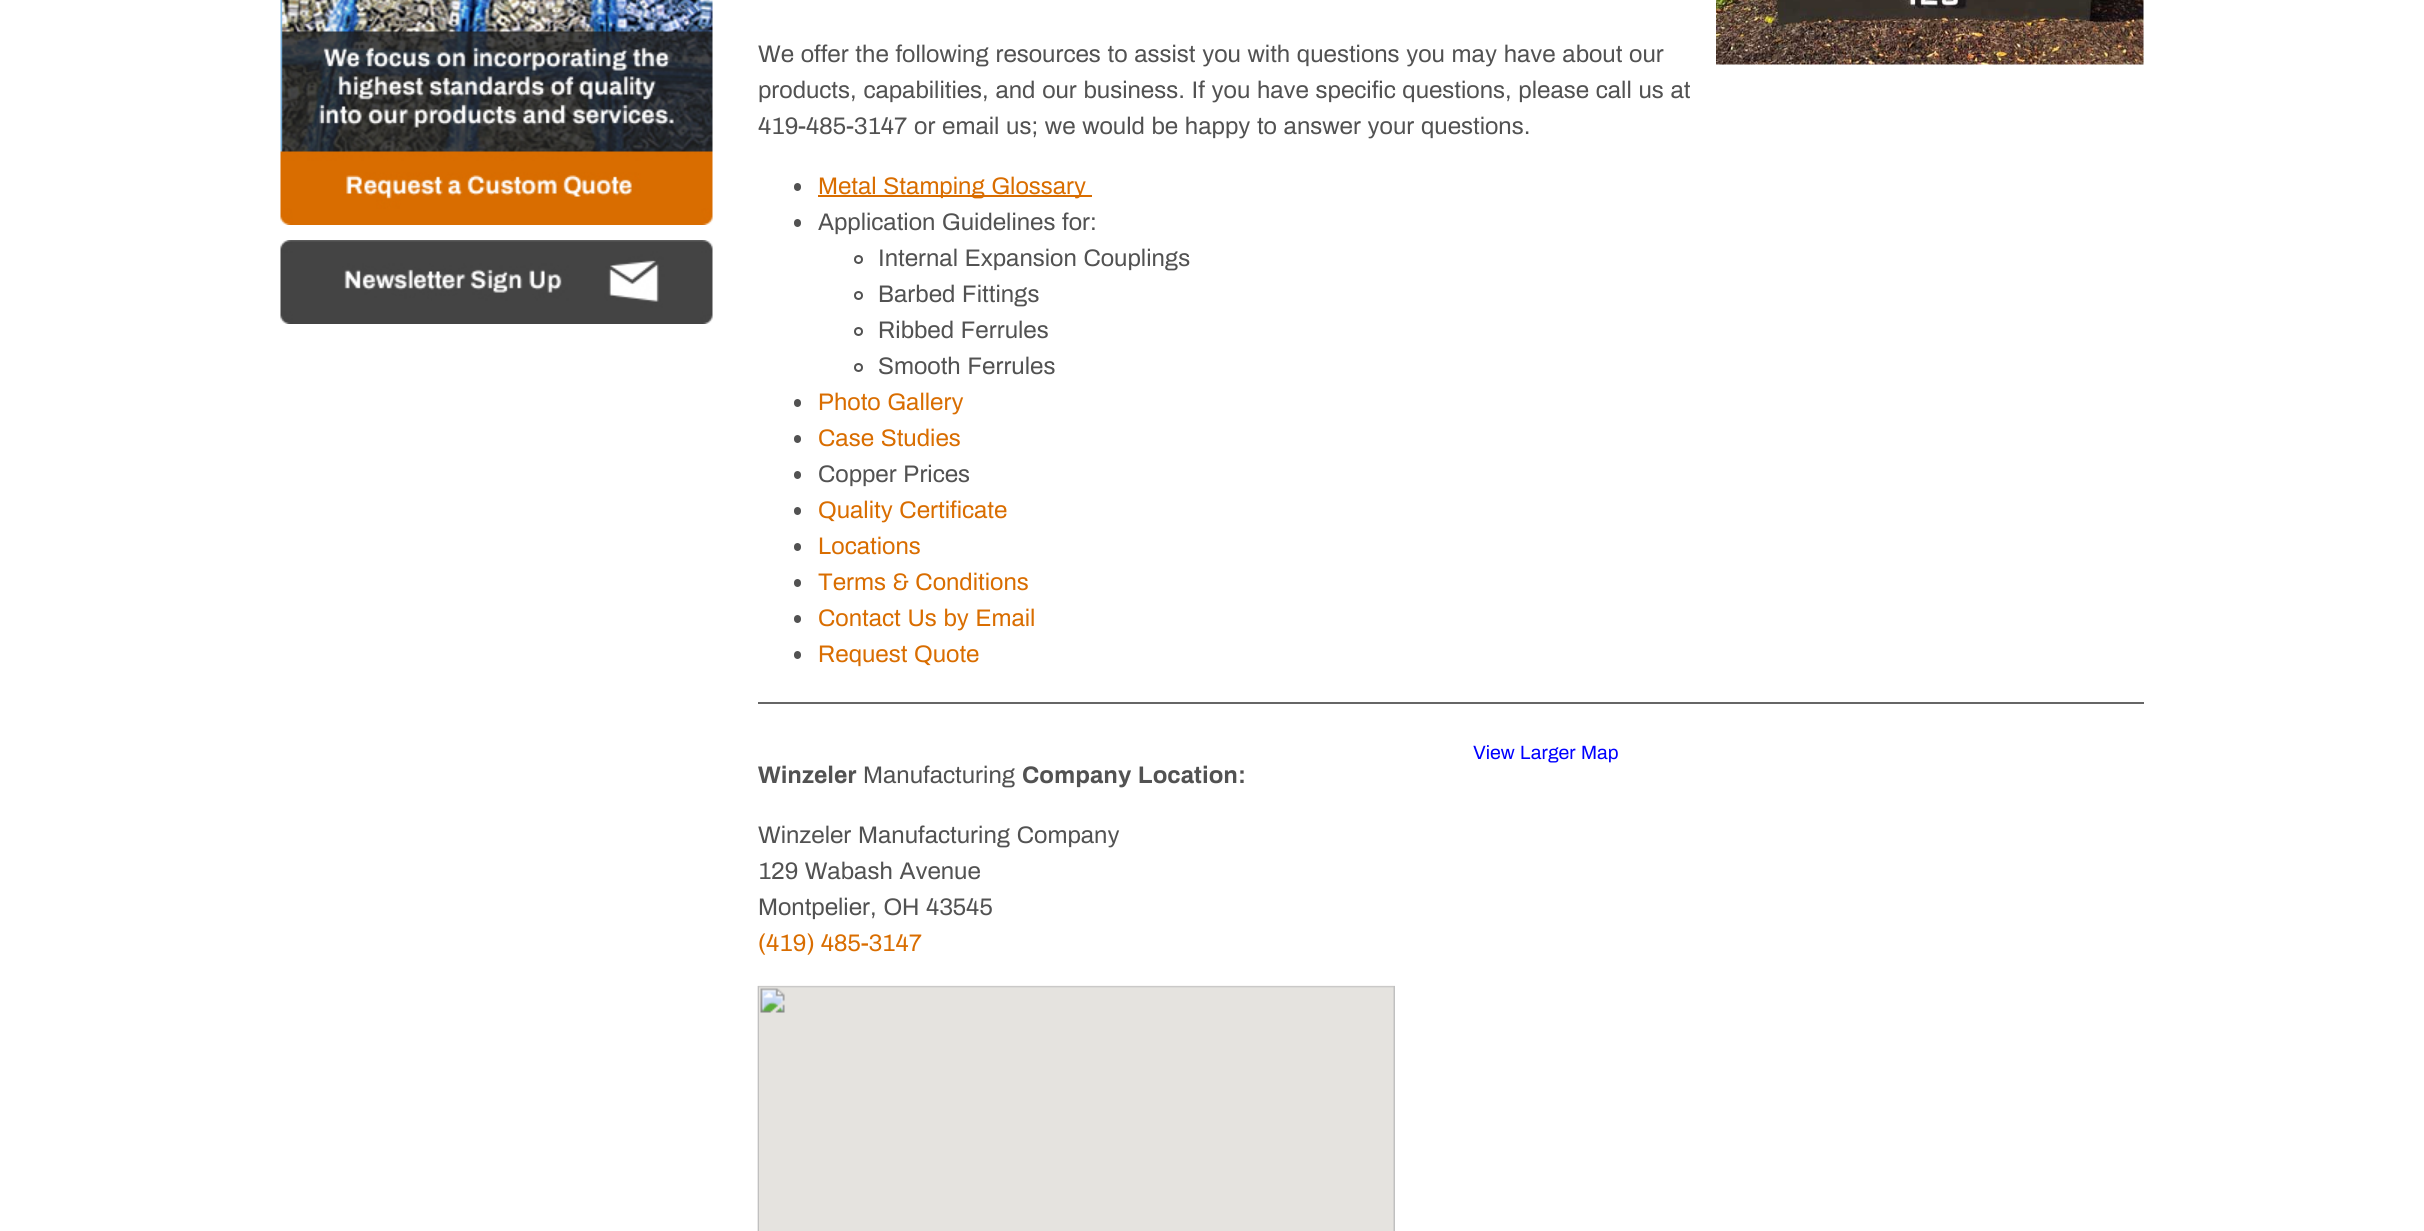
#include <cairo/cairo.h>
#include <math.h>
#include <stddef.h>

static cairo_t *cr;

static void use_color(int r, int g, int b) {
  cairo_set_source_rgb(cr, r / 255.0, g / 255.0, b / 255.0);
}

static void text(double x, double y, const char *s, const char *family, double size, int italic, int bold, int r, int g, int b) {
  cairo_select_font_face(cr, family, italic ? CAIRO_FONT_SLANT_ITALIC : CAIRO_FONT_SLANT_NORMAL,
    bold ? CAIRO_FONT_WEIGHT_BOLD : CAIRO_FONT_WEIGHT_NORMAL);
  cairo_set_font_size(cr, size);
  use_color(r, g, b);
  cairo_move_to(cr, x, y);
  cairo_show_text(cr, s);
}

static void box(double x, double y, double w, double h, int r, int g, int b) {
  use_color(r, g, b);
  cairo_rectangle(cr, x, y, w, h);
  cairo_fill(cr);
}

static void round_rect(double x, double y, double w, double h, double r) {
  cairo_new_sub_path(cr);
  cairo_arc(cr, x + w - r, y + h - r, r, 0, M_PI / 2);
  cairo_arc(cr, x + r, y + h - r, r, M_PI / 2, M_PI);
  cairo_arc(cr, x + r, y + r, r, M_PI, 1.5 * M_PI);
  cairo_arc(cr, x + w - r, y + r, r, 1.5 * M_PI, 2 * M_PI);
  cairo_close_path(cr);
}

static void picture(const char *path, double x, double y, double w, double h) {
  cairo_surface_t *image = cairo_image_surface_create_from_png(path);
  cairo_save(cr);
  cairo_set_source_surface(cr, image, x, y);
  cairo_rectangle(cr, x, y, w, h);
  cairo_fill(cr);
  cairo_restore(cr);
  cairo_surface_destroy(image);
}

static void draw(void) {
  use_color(255, 255, 255);
  cairo_paint(cr);
  picture("img_01.png", 280, 0, 433, 225);
  picture("img_02.png", 280, 240, 433, 84);
  picture("img_03.png", 1716, 0, 428, 65);
  use_color(82, 82, 82);
  round_rect(794, 183, 7, 8, 3.5);
  cairo_fill(cr);
  box(818, 195, 274, 2, 217, 109, 0);
  use_color(82, 82, 82);
  round_rect(794, 219, 7, 8, 3.5);
  cairo_fill(cr);
  cairo_arc(cr, 858.5, 259.5, 3.5, 0, 2 * M_PI);
  cairo_stroke(cr);
  cairo_arc(cr, 858.5, 295.5, 3.5, 0, 2 * M_PI);
  cairo_stroke(cr);
  cairo_arc(cr, 858.5, 331.5, 3.5, 0, 2 * M_PI);
  cairo_stroke(cr);
  cairo_arc(cr, 858.5, 367.5, 3.5, 0, 2 * M_PI);
  cairo_stroke(cr);
  round_rect(794, 399, 7, 8, 3.5);
  cairo_fill(cr);
  round_rect(794, 435, 7, 8, 3.5);
  cairo_fill(cr);
  round_rect(794, 471, 7, 8, 3.5);
  cairo_fill(cr);
  round_rect(794, 507, 7, 8, 3.5);
  cairo_fill(cr);
  round_rect(794, 543, 7, 8, 3.5);
  cairo_fill(cr);
  round_rect(794, 579, 7, 8, 3.5);
  cairo_fill(cr);
  round_rect(794, 615, 7, 8, 3.5);
  cairo_fill(cr);
  round_rect(794, 651, 7, 8, 3.5);
  cairo_fill(cr);
  box(758, 702, 1386, 2, 102, 102, 102);
  picture("img_04.png", 757, 985, 638, 246);
  text(758, 62, "We offer the following resources to assist you with questions you may have about our", "Archivo", 24, 0, 0, 82, 82, 82);
  text(758, 98, "products, capabilities, and our business. If you have specific questions, please call us at", "Archivo", 24, 0, 0, 82, 82, 82);
  text(758, 134, "419-485-3147 or email us; we would be happy to answer your questions.", "Archivo", 24, 0, 0, 82, 82, 82);
  text(818, 194, "Metal Stamping Glossary", "Archivo", 24, 0, 0, 217, 109, 0);
  text(818, 230, "Application Guidelines for:", "Archivo", 24, 0, 0, 82, 82, 82);
  text(878, 266, "Internal Expansion Couplings", "Archivo", 24, 0, 0, 82, 82, 82);
  text(878, 302, "Barbed Fittings", "Archivo", 24, 0, 0, 82, 82, 82);
  text(878, 338, "Ribbed Ferrules", "Archivo", 24, 0, 0, 82, 82, 82);
  text(878, 374, "Smooth Ferrules", "Archivo", 24, 0, 0, 82, 82, 82);
  text(818, 410, "Photo Gallery", "Archivo", 24, 0, 0, 217, 109, 0);
  text(818, 446, "Case Studies", "Archivo", 24, 0, 0, 217, 109, 0);
  text(818, 482, "Copper Prices", "Archivo", 24, 0, 0, 82, 82, 82);
  text(818, 518, "Quality Certificate", "Archivo", 24, 0, 0, 217, 109, 0);
  text(818, 554, "Locations", "Archivo", 24, 0, 0, 217, 109, 0);
  text(818, 590, "Terms & Conditions", "Archivo", 24, 0, 0, 217, 109, 0);
  text(818, 626, "Contact Us by Email", "Archivo", 24, 0, 0, 217, 109, 0);
  text(818, 662, "Request Quote", "Archivo", 24, 0, 0, 217, 109, 0);
  text(1473, 759, "View Larger Map", "Archivo", 19.25, 0, 0, 0, 0, 255);
  text(758, 783, "Winzeler", "Archivo", 24, 0, 1, 82, 82, 82);
  text(863, 783, "Manufacturing", "Archivo", 24, 0, 0, 82, 82, 82);
  text(1022, 783, "Company Location:", "Archivo", 24, 0, 1, 82, 82, 82);
  text(758, 843, "Winzeler Manufacturing Company", "Archivo", 24, 0, 0, 82, 82, 82);
  text(758, 879, "129 Wabash Avenue", "Archivo", 24, 0, 0, 82, 82, 82);
  text(758, 915, "Montpelier, OH 43545", "Archivo", 24, 0, 0, 82, 82, 82);
  text(758, 951, "(419) 485-3147", "Archivo", 24, 0, 0, 217, 109, 0);
}

int main(void) {
  cairo_surface_t *surface = cairo_image_surface_create(CAIRO_FORMAT_RGB24, 2424, 1231);
  cr = cairo_create(surface);
  cairo_font_options_t *options = cairo_font_options_create();
  cairo_font_options_set_hint_metrics(options, CAIRO_HINT_METRICS_OFF);
  cairo_font_options_set_hint_style(options, CAIRO_HINT_STYLE_NONE);
  cairo_set_font_options(cr, options);
  cairo_set_miter_limit(cr, 4);
  draw();
  cairo_surface_write_to_png(surface, "out.png");
  cairo_font_options_destroy(options);
  cairo_destroy(cr);
  cairo_surface_destroy(surface);
  return 0;
}
